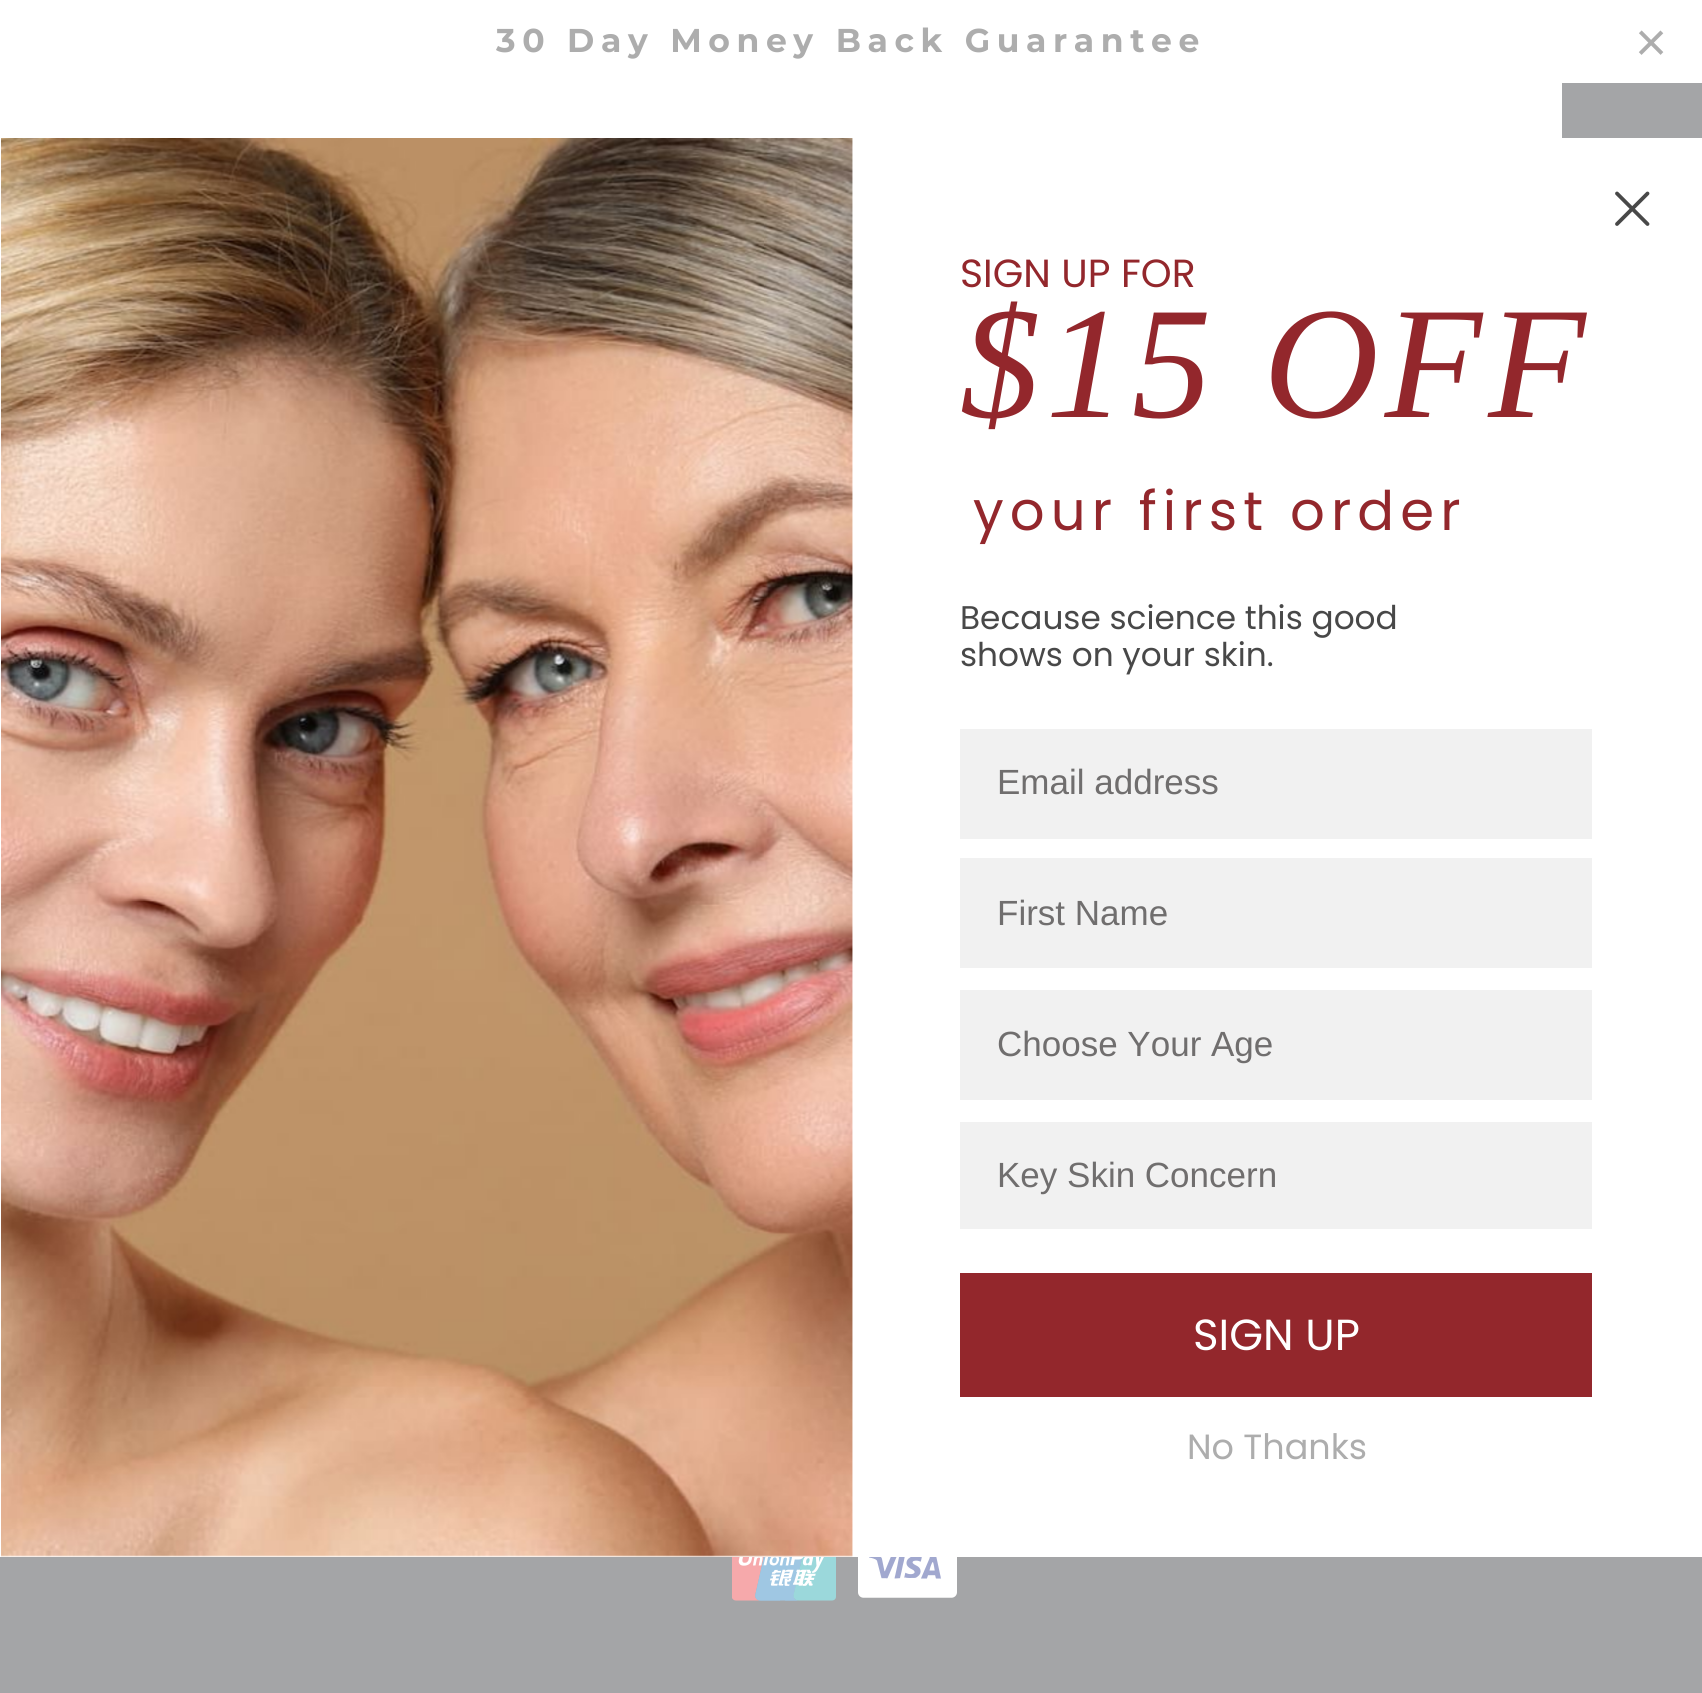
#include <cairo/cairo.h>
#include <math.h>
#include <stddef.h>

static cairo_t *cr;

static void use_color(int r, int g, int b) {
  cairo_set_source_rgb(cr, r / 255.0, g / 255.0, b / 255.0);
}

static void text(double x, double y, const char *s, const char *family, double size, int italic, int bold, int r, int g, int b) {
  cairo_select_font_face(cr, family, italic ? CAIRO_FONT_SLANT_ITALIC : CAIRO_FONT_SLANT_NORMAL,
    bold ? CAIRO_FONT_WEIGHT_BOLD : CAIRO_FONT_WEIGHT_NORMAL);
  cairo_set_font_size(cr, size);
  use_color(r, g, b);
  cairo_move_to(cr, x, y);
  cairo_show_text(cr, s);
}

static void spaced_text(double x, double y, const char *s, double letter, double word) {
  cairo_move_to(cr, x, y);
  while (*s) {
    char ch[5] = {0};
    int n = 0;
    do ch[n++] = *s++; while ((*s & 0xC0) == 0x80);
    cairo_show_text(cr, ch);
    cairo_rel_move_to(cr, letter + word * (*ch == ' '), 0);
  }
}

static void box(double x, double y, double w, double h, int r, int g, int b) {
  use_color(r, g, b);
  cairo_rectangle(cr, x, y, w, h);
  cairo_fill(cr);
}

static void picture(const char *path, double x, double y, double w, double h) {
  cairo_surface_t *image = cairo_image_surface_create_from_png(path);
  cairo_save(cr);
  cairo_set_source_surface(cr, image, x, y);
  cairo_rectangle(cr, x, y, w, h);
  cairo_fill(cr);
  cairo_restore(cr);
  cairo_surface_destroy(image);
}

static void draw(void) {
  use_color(164, 165, 167);
  cairo_paint(cr);
  box(0, 0, 1702, 83, 255, 255, 255);
  box(0, 83, 1562, 55, 255, 255, 255);
  box(0, 138, 1702, 1419, 255, 255, 255);
  cairo_new_path(cr);
  cairo_move_to(cr, 1617, 193.5);
  cairo_line_to(cr, 1647.5, 224);
  cairo_move_to(cr, 1617, 224);
  cairo_line_to(cr, 1647.5, 193.5);
  cairo_close_path(cr);
  use_color(72, 72, 72);
  cairo_set_line_width(cr, 3.8);
  cairo_set_line_cap(cr, CAIRO_LINE_CAP_ROUND);
  cairo_set_line_join(cr, CAIRO_LINE_JOIN_ROUND);
  cairo_stroke(cr);
  picture("img_01.png", 1, 138, 852, 1419);
  box(960, 729, 632, 110, 241, 241, 241);
  box(960, 858, 632, 110, 241, 241, 241);
  box(960, 990, 632, 110, 241, 241, 241);
  box(960, 1122, 632, 107, 241, 241, 241);
  box(960, 1273, 632, 124, 147, 39, 44);
  picture("img_02.png", 732, 1557, 104, 44);
  picture("img_03.png", 858, 1557, 99, 41);
  cairo_select_font_face(cr, "Montserrat", CAIRO_FONT_SLANT_NORMAL, CAIRO_FONT_WEIGHT_BOLD);
  cairo_set_font_size(cr, 33);
  use_color(173, 173, 173);
  spaced_text(496, 52, "30 Day Money Back Guarantee", 6.6, 0);
  cairo_select_font_face(cr, "Liberation Sans", CAIRO_FONT_SLANT_NORMAL, CAIRO_FONT_WEIGHT_NORMAL);
  cairo_set_font_size(cr, 55);
  spaced_text(1635, 61, "×", 6.6, 0);
  text(960, 287, "SIGN UP FOR", "Poppins", 39.25, 0, 0, 147, 39, 44);
  cairo_select_font_face(cr, "Liberation Serif", CAIRO_FONT_SLANT_ITALIC, CAIRO_FONT_WEIGHT_NORMAL);
  cairo_set_font_size(cr, 159.5);
  spaced_text(960, 417, "$15 OFF", 6.1, 0);
  cairo_select_font_face(cr, "Poppins", CAIRO_FONT_SLANT_NORMAL, CAIRO_FONT_WEIGHT_NORMAL);
  cairo_set_font_size(cr, 54.5);
  spaced_text(973, 530, "your first order", 6.1, 0);
  text(960, 629, "Because science this good", "Poppins", 32.75, 0, 0, 72, 72, 72);
  text(960, 666, "shows on your skin.", "Poppins", 32.75, 0, 0, 72, 72, 72);
  text(997, 794, "Email address", "Liberation Sans", 35, 0, 0, 112, 110, 110);
  text(997, 925, "First Name", "Liberation Sans", 35, 0, 0, 112, 110, 110);
  text(997, 1056, "Choose Your Age", "Liberation Sans", 35, 0, 0, 112, 110, 110);
  text(997, 1187, "Key Skin Concern", "Liberation Sans", 35, 0, 0, 112, 110, 110);
  text(1193, 1350, "SIGN UP", "Poppins", 43.5, 0, 0, 255, 255, 255);
  text(1187, 1459, "No Thanks", "Poppins", 35, 0, 0, 173, 173, 173);
}

int main(void) {
  cairo_surface_t *surface = cairo_image_surface_create(CAIRO_FORMAT_RGB24, 1702, 1693);
  cr = cairo_create(surface);
  cairo_font_options_t *options = cairo_font_options_create();
  cairo_font_options_set_hint_metrics(options, CAIRO_HINT_METRICS_OFF);
  cairo_font_options_set_hint_style(options, CAIRO_HINT_STYLE_NONE);
  cairo_set_font_options(cr, options);
  cairo_set_miter_limit(cr, 4);
  draw();
  cairo_surface_write_to_png(surface, "out.png");
  cairo_font_options_destroy(options);
  cairo_destroy(cr);
  cairo_surface_destroy(surface);
  return 0;
}
